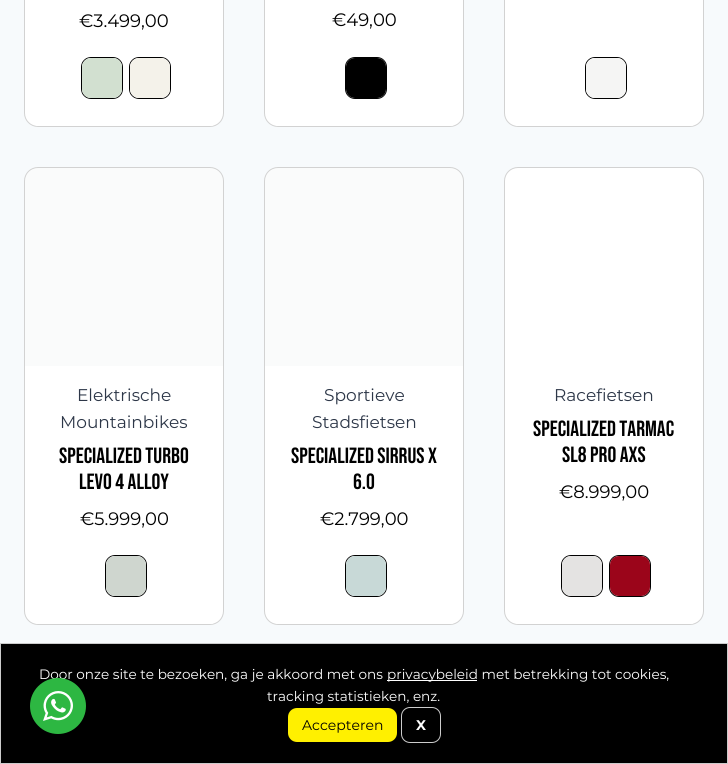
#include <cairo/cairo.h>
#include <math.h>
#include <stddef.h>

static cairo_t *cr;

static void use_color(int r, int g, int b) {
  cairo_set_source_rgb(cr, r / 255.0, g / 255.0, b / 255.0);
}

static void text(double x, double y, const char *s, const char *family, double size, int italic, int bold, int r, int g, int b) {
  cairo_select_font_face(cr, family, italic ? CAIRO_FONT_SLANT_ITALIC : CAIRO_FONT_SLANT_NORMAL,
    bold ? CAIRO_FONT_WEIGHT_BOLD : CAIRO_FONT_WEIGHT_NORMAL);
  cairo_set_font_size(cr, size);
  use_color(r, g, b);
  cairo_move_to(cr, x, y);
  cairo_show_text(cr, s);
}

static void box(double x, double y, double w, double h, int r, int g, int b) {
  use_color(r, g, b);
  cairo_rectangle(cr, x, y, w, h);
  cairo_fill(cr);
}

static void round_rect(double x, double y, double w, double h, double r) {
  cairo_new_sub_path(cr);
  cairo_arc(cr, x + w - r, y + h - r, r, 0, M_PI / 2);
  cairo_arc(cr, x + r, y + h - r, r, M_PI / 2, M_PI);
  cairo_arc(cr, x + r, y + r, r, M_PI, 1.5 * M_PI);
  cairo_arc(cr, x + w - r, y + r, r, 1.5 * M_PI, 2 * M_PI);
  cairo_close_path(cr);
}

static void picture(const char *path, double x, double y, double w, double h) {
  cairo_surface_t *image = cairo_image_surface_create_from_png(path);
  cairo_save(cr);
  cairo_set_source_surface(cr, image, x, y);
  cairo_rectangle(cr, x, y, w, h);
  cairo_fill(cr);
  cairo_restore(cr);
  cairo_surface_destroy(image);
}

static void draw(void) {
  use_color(247, 250, 252);
  cairo_paint(cr);
  use_color(255, 255, 255);
  round_rect(24.5, -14.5, 199, 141, 13.5);
  cairo_fill_preserve(cr);
  use_color(210, 210, 210);
  cairo_set_line_width(cr, 1);
  cairo_stroke(cr);
  cairo_save(cr);
  round_rect(25, -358, 198, 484, 13);
  cairo_clip(cr);
  use_color(255, 255, 255);
  round_rect(34, -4, 181, 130, 4);
  cairo_fill(cr);
  cairo_restore(cr);
  round_rect(81.5, 57.5, 41, 41, 9.5);
  use_color(0, 0, 0);
  cairo_stroke(cr);
  use_color(255, 255, 255);
  round_rect(82, 58, 40, 40, 9);
  cairo_fill(cr);
  cairo_set_source_rgba(cr, 0.51, 0.663, 0.49, 0.36);
  round_rect(82, 58, 40, 40, 9);
  cairo_fill(cr);
  round_rect(129.5, 57.5, 41, 41, 9.5);
  use_color(0, 0, 0);
  cairo_stroke(cr);
  use_color(255, 255, 255);
  round_rect(130, 58, 40, 40, 9);
  cairo_fill(cr);
  cairo_set_source_rgba(cr, 0.882, 0.859, 0.78, 0.36);
  round_rect(130, 58, 40, 40, 9);
  cairo_fill(cr);
  use_color(255, 255, 255);
  round_rect(264.5, -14.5, 199, 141, 13.5);
  cairo_fill_preserve(cr);
  use_color(210, 210, 210);
  cairo_stroke(cr);
  cairo_save(cr);
  round_rect(265, -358, 198, 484, 13);
  cairo_clip(cr);
  use_color(255, 255, 255);
  round_rect(274, -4, 181, 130, 4);
  cairo_fill(cr);
  cairo_restore(cr);
  round_rect(345.5, 57.5, 41, 41, 9.5);
  use_color(0, 0, 0);
  cairo_stroke(cr);
  round_rect(346, 58, 40, 40, 9);
  cairo_fill(cr);
  use_color(255, 255, 255);
  round_rect(504.5, -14.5, 199, 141, 13.5);
  cairo_fill_preserve(cr);
  use_color(210, 210, 210);
  cairo_stroke(cr);
  cairo_save(cr);
  round_rect(505, -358, 198, 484, 13);
  cairo_clip(cr);
  use_color(255, 255, 255);
  round_rect(514, -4, 181, 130, 4);
  cairo_fill(cr);
  cairo_restore(cr);
  round_rect(585.5, 57.5, 41, 41, 9.5);
  use_color(0, 0, 0);
  cairo_stroke(cr);
  use_color(255, 255, 255);
  round_rect(586, 58, 40, 40, 9);
  cairo_fill(cr);
  cairo_set_source_rgba(cr, 0.894, 0.89, 0.886, 0.36);
  round_rect(586, 58, 40, 40, 9);
  cairo_fill(cr);
  use_color(255, 255, 255);
  round_rect(24.5, 167.5, 199, 457, 13.5);
  cairo_fill_preserve(cr);
  use_color(210, 210, 210);
  cairo_stroke(cr);
  cairo_set_source_rgba(cr, 0.812, 0.831, 0.859, 0.1);
  cairo_new_path(cr);
  cairo_move_to(cr, 38, 168);
  cairo_line_to(cr, 210, 168);
  cairo_curve_to(cr, 217, 168, 223, 174, 223, 181);
  cairo_line_to(cr, 223, 366);
  cairo_line_to(cr, 25, 366);
  cairo_line_to(cr, 25, 181);
  cairo_curve_to(cr, 25, 174, 31, 168, 38, 168);
  cairo_close_path(cr);
  cairo_fill(cr);
  cairo_save(cr);
  round_rect(25, 168, 198, 456, 13);
  cairo_clip(cr);
  use_color(255, 255, 255);
  round_rect(34, 366, 181, 258, 4);
  cairo_fill(cr);
  cairo_restore(cr);
  round_rect(105.5, 555.5, 41, 41, 9.5);
  use_color(0, 0, 0);
  cairo_stroke(cr);
  use_color(255, 255, 255);
  round_rect(106, 556, 40, 40, 9);
  cairo_fill(cr);
  cairo_set_source_rgba(cr, 0.478, 0.561, 0.478, 0.36);
  round_rect(106, 556, 40, 40, 9);
  cairo_fill(cr);
  use_color(255, 255, 255);
  round_rect(264.5, 167.5, 199, 457, 13.5);
  cairo_fill_preserve(cr);
  use_color(210, 210, 210);
  cairo_stroke(cr);
  cairo_set_source_rgba(cr, 0.812, 0.831, 0.859, 0.1);
  cairo_new_path(cr);
  cairo_move_to(cr, 278, 168);
  cairo_line_to(cr, 450, 168);
  cairo_curve_to(cr, 457, 168, 463, 174, 463, 181);
  cairo_line_to(cr, 463, 366);
  cairo_line_to(cr, 265, 366);
  cairo_line_to(cr, 265, 181);
  cairo_curve_to(cr, 265, 174, 271, 168, 278, 168);
  cairo_close_path(cr);
  cairo_fill(cr);
  cairo_save(cr);
  round_rect(265, 168, 198, 456, 13);
  cairo_clip(cr);
  use_color(255, 255, 255);
  round_rect(274, 366, 181, 258, 4);
  cairo_fill(cr);
  cairo_restore(cr);
  round_rect(345.5, 555.5, 41, 41, 9.5);
  use_color(0, 0, 0);
  cairo_stroke(cr);
  use_color(255, 255, 255);
  round_rect(346, 556, 40, 40, 9);
  cairo_fill(cr);
  cairo_set_source_rgba(cr, 0.412, 0.588, 0.565, 0.36);
  round_rect(346, 556, 40, 40, 9);
  cairo_fill(cr);
  use_color(255, 255, 255);
  round_rect(504.5, 167.5, 199, 457, 13.5);
  cairo_fill_preserve(cr);
  use_color(210, 210, 210);
  cairo_stroke(cr);
  cairo_save(cr);
  round_rect(505, 168, 198, 456, 13);
  cairo_clip(cr);
  use_color(255, 255, 255);
  round_rect(514, 366, 181, 258, 4);
  cairo_fill(cr);
  cairo_restore(cr);
  round_rect(561.5, 555.5, 41, 41, 9.5);
  use_color(0, 0, 0);
  cairo_stroke(cr);
  use_color(228, 227, 226);
  round_rect(562, 556, 40, 40, 9);
  cairo_fill(cr);
  round_rect(609.5, 555.5, 41, 41, 9.5);
  use_color(0, 0, 0);
  cairo_stroke(cr);
  use_color(155, 5, 26);
  round_rect(610, 556, 40, 40, 9);
  cairo_fill(cr);
  use_color(0, 0, 0);
  cairo_rectangle(cr, 0.5, 643.5, 727, 120);
  cairo_fill_preserve(cr);
  use_color(204, 204, 204);
  cairo_stroke(cr);
  box(387, 680, 90, 1, 255, 255, 255);
  use_color(255, 240, 0);
  round_rect(288, 708, 109, 34, 9);
  cairo_fill(cr);
  round_rect(401.5, 707.5, 39, 35, 8.5);
  use_color(204, 204, 204);
  cairo_stroke(cr);
  text(79, 27, "€3.499,00", "Montserrat", 18, 0, 0, 0, 0, 0);
  text(332, 26, "€49,00", "Montserrat", 18, 0, 0, 0, 0, 0);
  text(77, 401, "Elektrische", "Montserrat", 17, 0, 0, 45, 55, 72);
  text(60, 428, "Mountainbikes", "Montserrat", 17, 0, 0, 45, 55, 72);
  text(59, 463, "Specialized Turbo", "Bebas Neue", 22, 0, 0, 0, 0, 0);
  text(79, 489, "Levo 4 Alloy", "Bebas Neue", 22, 0, 0, 0, 0, 0);
  text(80, 525, "€5.999,00", "Montserrat", 18, 0, 0, 0, 0, 0);
  text(324, 401, "Sportieve", "Montserrat", 17, 0, 0, 45, 55, 72);
  text(312, 428, "Stadsfietsen", "Montserrat", 17, 0, 0, 45, 55, 72);
  text(291, 463, "Specialized Sirrus X", "Bebas Neue", 22, 0, 0, 0, 0, 0);
  text(353, 489, "6.0", "Bebas Neue", 22, 0, 0, 0, 0, 0);
  text(320, 525, "€2.799,00", "Montserrat", 18, 0, 0, 0, 0, 0);
  text(554, 401, "Racefietsen", "Montserrat", 17, 0, 0, 45, 55, 72);
  text(533, 436, "Specialized Tarmac", "Bebas Neue", 22, 0, 0, 0, 0, 0);
  text(562, 462, "SL8 Pro AXS", "Bebas Neue", 22, 0, 0, 0, 0, 0);
  text(559, 498, "€8.999,00", "Montserrat", 18, 0, 0, 0, 0, 0);
  text(39, 679, "Door onze site te bezoeken, ga je akkoord met ons", "Montserrat", 13.6, 0, 0, 255, 255, 255);
  text(387, 679, "privacybeleid met betrekking tot cookies,", "Montserrat", 13.6, 0, 0, 255, 255, 255);
  text(267, 701, "tracking statistieken, enz.", "Montserrat", 13.6, 0, 0, 255, 255, 255);
  text(302, 730, "Accepteren", "Montserrat", 14, 0, 0, 0, 0, 0);
  text(416, 730, "X", "Montserrat", 14, 0, 1, 255, 255, 255);
  use_color(45, 183, 66);
  cairo_new_path(cr);
  cairo_arc(cr, 58, 706, 28, 0, 2 * M_PI);
  cairo_fill(cr);
  picture("img_01.png", 43, 691, 30, 30);
}

int main(void) {
  cairo_surface_t *surface = cairo_image_surface_create(CAIRO_FORMAT_RGB24, 728, 764);
  cr = cairo_create(surface);
  cairo_font_options_t *options = cairo_font_options_create();
  cairo_font_options_set_hint_metrics(options, CAIRO_HINT_METRICS_OFF);
  cairo_font_options_set_hint_style(options, CAIRO_HINT_STYLE_NONE);
  cairo_set_font_options(cr, options);
  cairo_set_miter_limit(cr, 4);
  draw();
  cairo_surface_write_to_png(surface, "out.png");
  cairo_font_options_destroy(options);
  cairo_destroy(cr);
  cairo_surface_destroy(surface);
  return 0;
}
